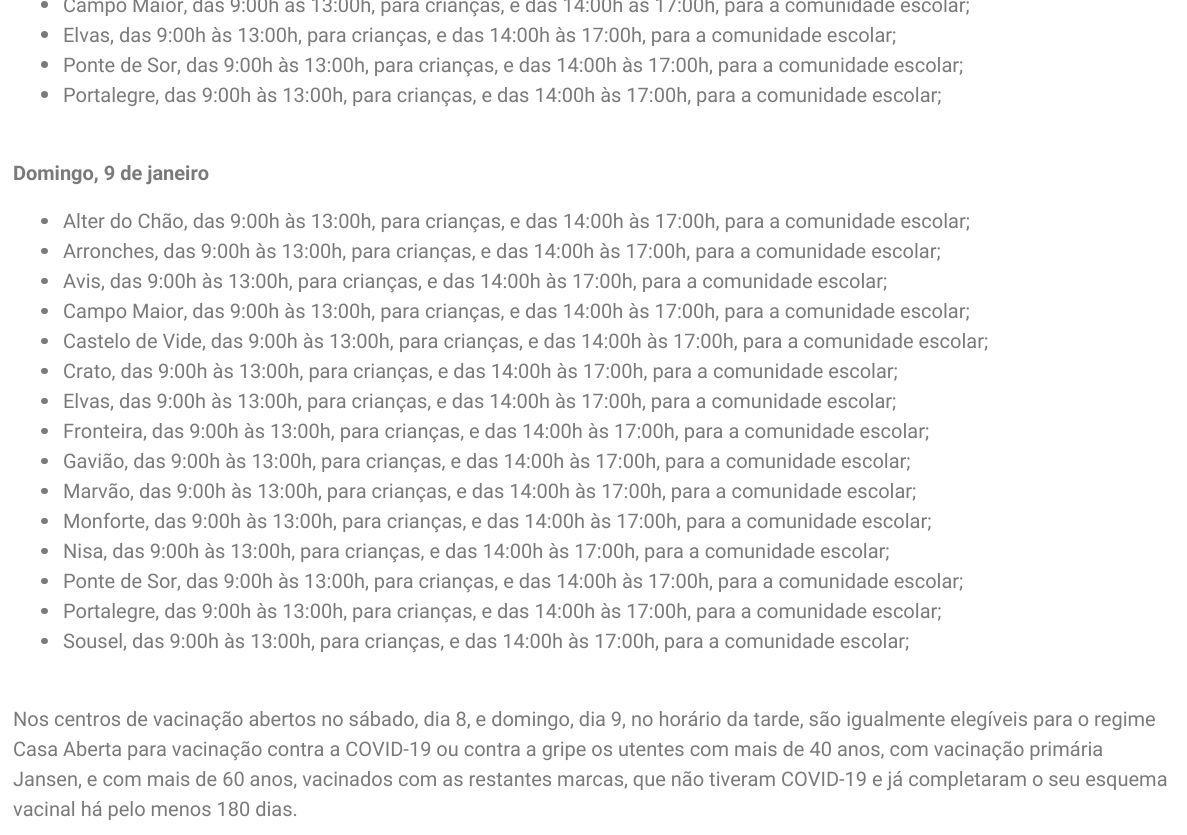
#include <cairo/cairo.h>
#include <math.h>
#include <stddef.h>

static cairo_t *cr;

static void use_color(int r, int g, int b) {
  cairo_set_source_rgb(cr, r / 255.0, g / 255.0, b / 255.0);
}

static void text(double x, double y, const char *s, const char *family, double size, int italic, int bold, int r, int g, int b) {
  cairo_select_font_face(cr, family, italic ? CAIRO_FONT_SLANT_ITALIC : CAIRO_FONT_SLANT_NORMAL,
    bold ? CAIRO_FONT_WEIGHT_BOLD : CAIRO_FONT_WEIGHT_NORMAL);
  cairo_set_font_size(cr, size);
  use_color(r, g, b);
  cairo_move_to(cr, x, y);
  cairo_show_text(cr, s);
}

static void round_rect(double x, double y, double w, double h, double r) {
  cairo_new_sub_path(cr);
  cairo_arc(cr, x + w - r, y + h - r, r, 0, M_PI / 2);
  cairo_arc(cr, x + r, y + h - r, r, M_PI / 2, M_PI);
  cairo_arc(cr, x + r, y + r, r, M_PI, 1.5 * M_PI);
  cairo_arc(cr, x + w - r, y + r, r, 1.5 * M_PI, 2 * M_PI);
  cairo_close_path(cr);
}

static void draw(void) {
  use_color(255, 255, 255);
  cairo_paint(cr);
  use_color(122, 122, 122);
  cairo_arc(cr, 44.5, 4.5, 3.5, 0, 2 * M_PI);
  cairo_fill(cr);
  cairo_arc(cr, 44.5, 34.5, 3.5, 0, 2 * M_PI);
  cairo_fill(cr);
  cairo_arc(cr, 44.5, 64.5, 3.5, 0, 2 * M_PI);
  cairo_fill(cr);
  cairo_arc(cr, 44.5, 94.5, 3.5, 0, 2 * M_PI);
  cairo_fill(cr);
  round_rect(41, 218, 7, 6, 3);
  cairo_fill(cr);
  round_rect(41, 248, 7, 6, 3);
  cairo_fill(cr);
  round_rect(41, 278, 7, 6, 3);
  cairo_fill(cr);
  round_rect(41, 308, 7, 6, 3);
  cairo_fill(cr);
  round_rect(41, 338, 7, 6, 3);
  cairo_fill(cr);
  round_rect(41, 368, 7, 6, 3);
  cairo_fill(cr);
  round_rect(41, 398, 7, 6, 3);
  cairo_fill(cr);
  round_rect(41, 428, 7, 6, 3);
  cairo_fill(cr);
  round_rect(41, 458, 7, 6, 3);
  cairo_fill(cr);
  round_rect(41, 488, 7, 6, 3);
  cairo_fill(cr);
  round_rect(41, 518, 7, 6, 3);
  cairo_fill(cr);
  round_rect(41, 548, 7, 6, 3);
  cairo_fill(cr);
  round_rect(41, 578, 7, 6, 3);
  cairo_fill(cr);
  round_rect(41, 608, 7, 6, 3);
  cairo_fill(cr);
  round_rect(41, 638, 7, 6, 3);
  cairo_fill(cr);
  text(63, 12, "Campo Maior, das 9:00h às 13:00h, para crianças, e das 14:00h às 17:00h, para a comunidade escolar;", "Roboto", 20, 0, 0, 122, 122, 122);
  text(63, 42, "Elvas, das 9:00h às 13:00h, para crianças, e das 14:00h às 17:00h, para a comunidade escolar;", "Roboto", 20, 0, 0, 122, 122, 122);
  text(63, 72, "Ponte de Sor, das 9:00h às 13:00h, para crianças, e das 14:00h às 17:00h, para a comunidade escolar;", "Roboto", 20, 0, 0, 122, 122, 122);
  text(63, 102, "Portalegre, das 9:00h às 13:00h, para crianças, e das 14:00h às 17:00h, para a comunidade escolar;", "Roboto", 20, 0, 0, 122, 122, 122);
  text(13, 180, "Domingo, 9 de janeiro", "Roboto", 20, 0, 1, 122, 122, 122);
  text(63, 228, "Alter do Chão, das 9:00h às 13:00h, para crianças, e das 14:00h às 17:00h, para a comunidade escolar;", "Roboto", 20, 0, 0, 122, 122, 122);
  text(63, 258, "Arronches, das 9:00h às 13:00h, para crianças, e das 14:00h às 17:00h, para a comunidade escolar;", "Roboto", 20, 0, 0, 122, 122, 122);
  text(63, 288, "Avis, das 9:00h às 13:00h, para crianças, e das 14:00h às 17:00h, para a comunidade escolar;", "Roboto", 20, 0, 0, 122, 122, 122);
  text(63, 318, "Campo Maior, das 9:00h às 13:00h, para crianças, e das 14:00h às 17:00h, para a comunidade escolar;", "Roboto", 20, 0, 0, 122, 122, 122);
  text(63, 348, "Castelo de Vide, das 9:00h às 13:00h, para crianças, e das 14:00h às 17:00h, para a comunidade escolar;", "Roboto", 20, 0, 0, 122, 122, 122);
  text(63, 378, "Crato, das 9:00h às 13:00h, para crianças, e das 14:00h às 17:00h, para a comunidade escolar;", "Roboto", 20, 0, 0, 122, 122, 122);
  text(63, 408, "Elvas, das 9:00h às 13:00h, para crianças, e das 14:00h às 17:00h, para a comunidade escolar;", "Roboto", 20, 0, 0, 122, 122, 122);
  text(63, 438, "Fronteira, das 9:00h às 13:00h, para crianças, e das 14:00h às 17:00h, para a comunidade escolar;", "Roboto", 20, 0, 0, 122, 122, 122);
  text(63, 468, "Gavião, das 9:00h às 13:00h, para crianças, e das 14:00h às 17:00h, para a comunidade escolar;", "Roboto", 20, 0, 0, 122, 122, 122);
  text(63, 498, "Marvão, das 9:00h às 13:00h, para crianças, e das 14:00h às 17:00h, para a comunidade escolar;", "Roboto", 20, 0, 0, 122, 122, 122);
  text(63, 528, "Monforte, das 9:00h às 13:00h, para crianças, e das 14:00h às 17:00h, para a comunidade escolar;", "Roboto", 20, 0, 0, 122, 122, 122);
  text(63, 558, "Nisa, das 9:00h às 13:00h, para crianças, e das 14:00h às 17:00h, para a comunidade escolar;", "Roboto", 20, 0, 0, 122, 122, 122);
  text(63, 588, "Ponte de Sor, das 9:00h às 13:00h, para crianças, e das 14:00h às 17:00h, para a comunidade escolar;", "Roboto", 20, 0, 0, 122, 122, 122);
  text(63, 618, "Portalegre, das 9:00h às 13:00h, para crianças, e das 14:00h às 17:00h, para a comunidade escolar;", "Roboto", 20, 0, 0, 122, 122, 122);
  text(63, 648, "Sousel, das 9:00h às 13:00h, para crianças, e das 14:00h às 17:00h, para a comunidade escolar;", "Roboto", 20, 0, 0, 122, 122, 122);
  text(13, 726, "Nos centros de vacinação abertos no sábado, dia 8, e domingo, dia 9, no horário da tarde, são igualmente elegíveis para o regime", "Roboto", 20, 0, 0, 122, 122, 122);
  text(13, 756, "Casa Aberta para vacinação contra a COVID-19 ou contra a gripe os utentes com mais de 40 anos, com vacinação primária", "Roboto", 20, 0, 0, 122, 122, 122);
  text(13, 786, "Jansen, e com mais de 60 anos, vacinados com as restantes marcas, que não tiveram COVID-19 e já completaram o seu esquema", "Roboto", 20, 0, 0, 122, 122, 122);
  text(13, 816, "vacinal há pelo menos 180 dias.", "Roboto", 20, 0, 0, 122, 122, 122);
}

int main(void) {
  cairo_surface_t *surface = cairo_image_surface_create(CAIRO_FORMAT_RGB24, 1187, 835);
  cr = cairo_create(surface);
  cairo_font_options_t *options = cairo_font_options_create();
  cairo_font_options_set_hint_metrics(options, CAIRO_HINT_METRICS_OFF);
  cairo_font_options_set_hint_style(options, CAIRO_HINT_STYLE_NONE);
  cairo_set_font_options(cr, options);
  cairo_set_miter_limit(cr, 4);
  draw();
  cairo_surface_write_to_png(surface, "out.png");
  cairo_font_options_destroy(options);
  cairo_destroy(cr);
  cairo_surface_destroy(surface);
  return 0;
}
